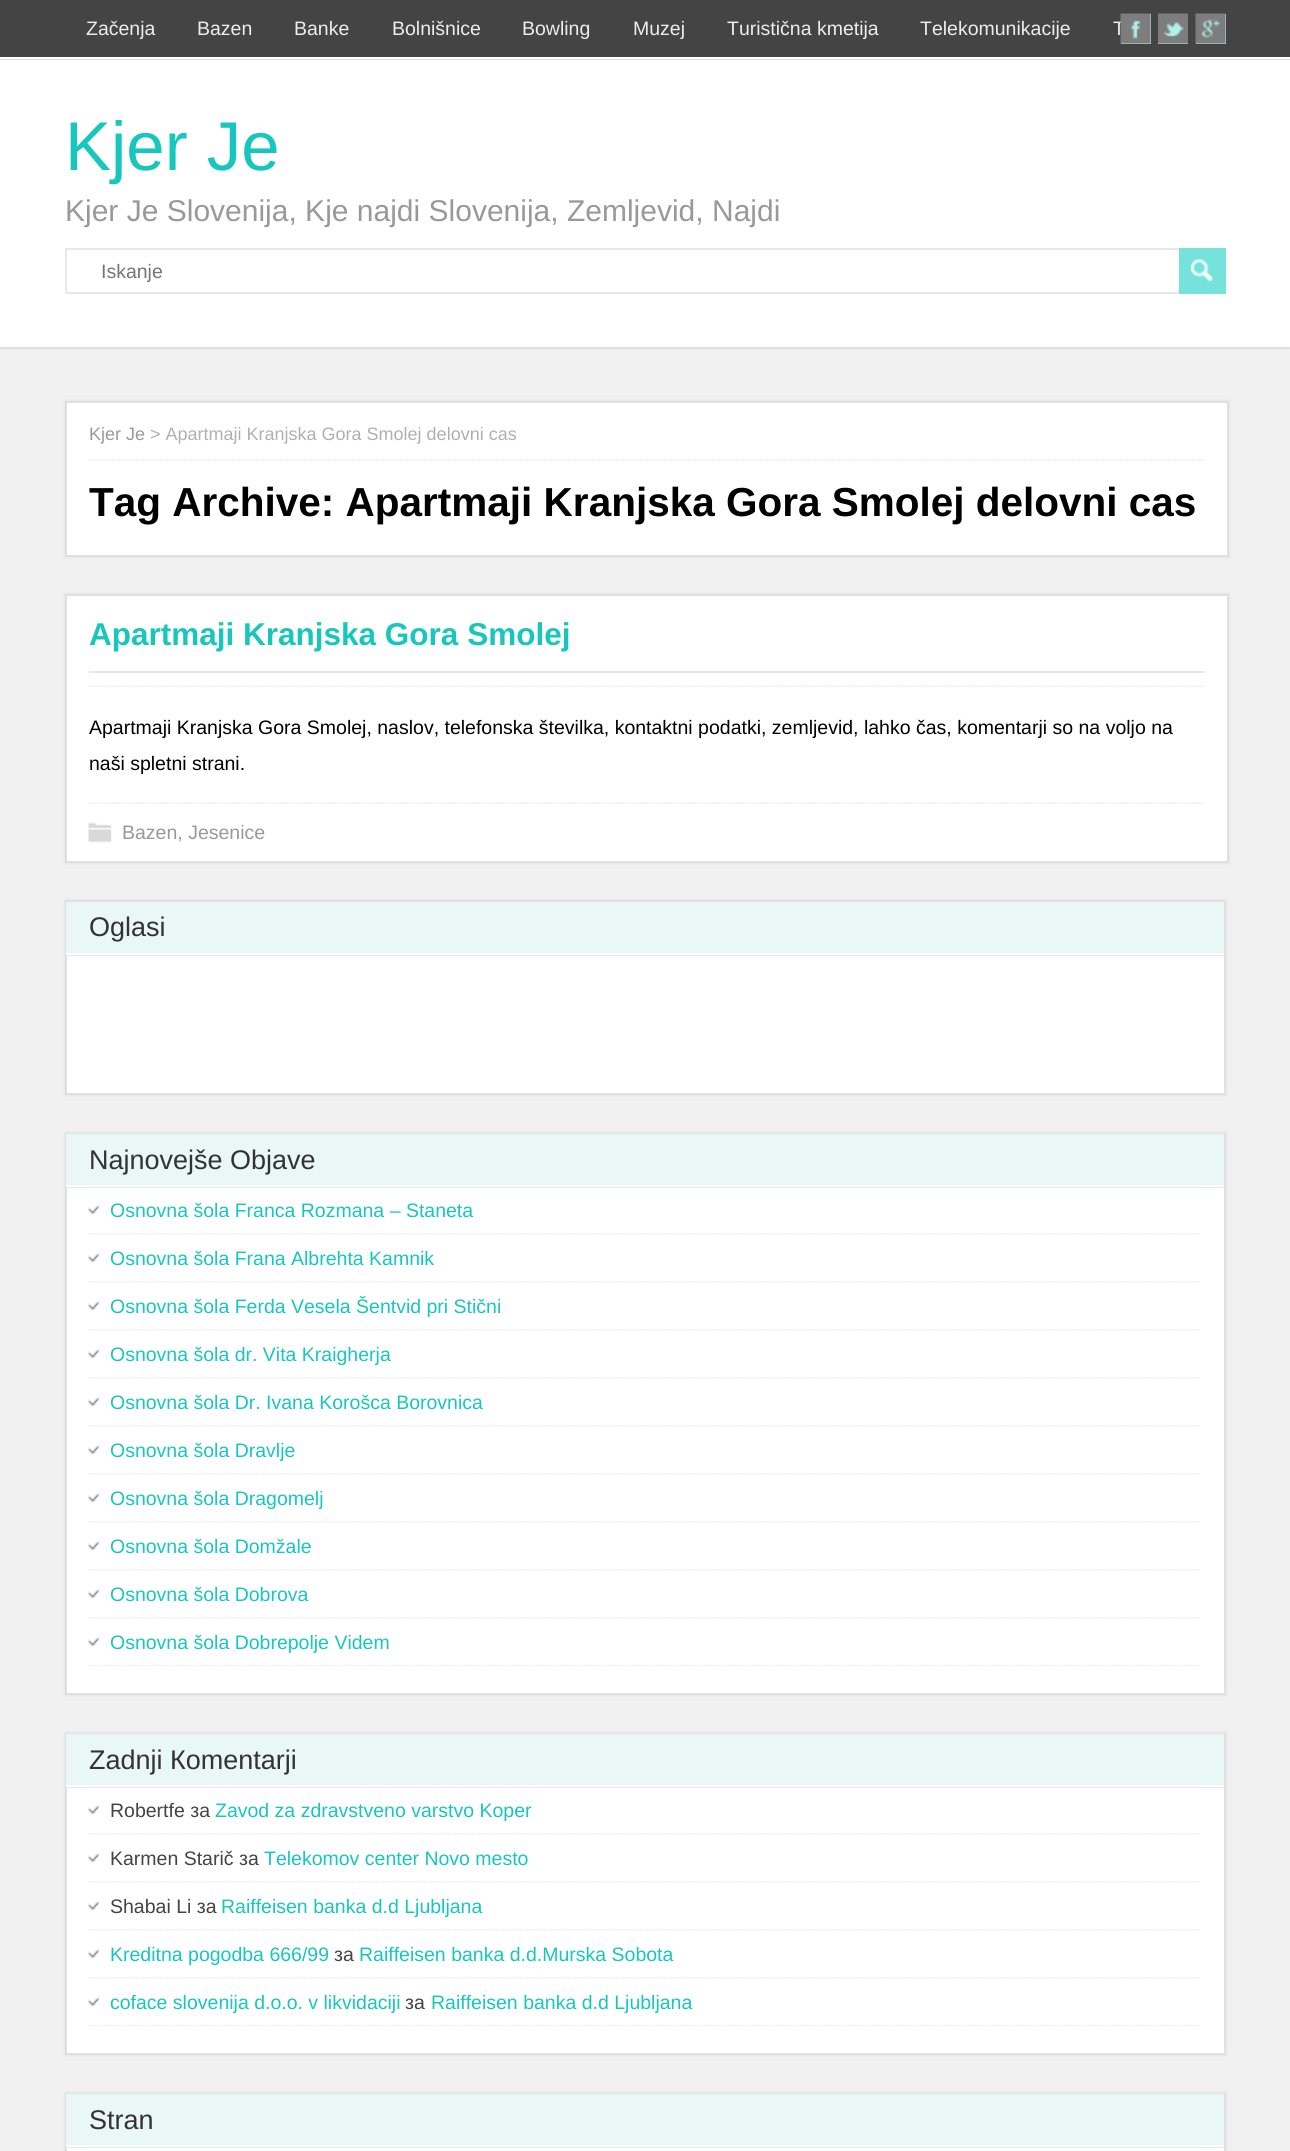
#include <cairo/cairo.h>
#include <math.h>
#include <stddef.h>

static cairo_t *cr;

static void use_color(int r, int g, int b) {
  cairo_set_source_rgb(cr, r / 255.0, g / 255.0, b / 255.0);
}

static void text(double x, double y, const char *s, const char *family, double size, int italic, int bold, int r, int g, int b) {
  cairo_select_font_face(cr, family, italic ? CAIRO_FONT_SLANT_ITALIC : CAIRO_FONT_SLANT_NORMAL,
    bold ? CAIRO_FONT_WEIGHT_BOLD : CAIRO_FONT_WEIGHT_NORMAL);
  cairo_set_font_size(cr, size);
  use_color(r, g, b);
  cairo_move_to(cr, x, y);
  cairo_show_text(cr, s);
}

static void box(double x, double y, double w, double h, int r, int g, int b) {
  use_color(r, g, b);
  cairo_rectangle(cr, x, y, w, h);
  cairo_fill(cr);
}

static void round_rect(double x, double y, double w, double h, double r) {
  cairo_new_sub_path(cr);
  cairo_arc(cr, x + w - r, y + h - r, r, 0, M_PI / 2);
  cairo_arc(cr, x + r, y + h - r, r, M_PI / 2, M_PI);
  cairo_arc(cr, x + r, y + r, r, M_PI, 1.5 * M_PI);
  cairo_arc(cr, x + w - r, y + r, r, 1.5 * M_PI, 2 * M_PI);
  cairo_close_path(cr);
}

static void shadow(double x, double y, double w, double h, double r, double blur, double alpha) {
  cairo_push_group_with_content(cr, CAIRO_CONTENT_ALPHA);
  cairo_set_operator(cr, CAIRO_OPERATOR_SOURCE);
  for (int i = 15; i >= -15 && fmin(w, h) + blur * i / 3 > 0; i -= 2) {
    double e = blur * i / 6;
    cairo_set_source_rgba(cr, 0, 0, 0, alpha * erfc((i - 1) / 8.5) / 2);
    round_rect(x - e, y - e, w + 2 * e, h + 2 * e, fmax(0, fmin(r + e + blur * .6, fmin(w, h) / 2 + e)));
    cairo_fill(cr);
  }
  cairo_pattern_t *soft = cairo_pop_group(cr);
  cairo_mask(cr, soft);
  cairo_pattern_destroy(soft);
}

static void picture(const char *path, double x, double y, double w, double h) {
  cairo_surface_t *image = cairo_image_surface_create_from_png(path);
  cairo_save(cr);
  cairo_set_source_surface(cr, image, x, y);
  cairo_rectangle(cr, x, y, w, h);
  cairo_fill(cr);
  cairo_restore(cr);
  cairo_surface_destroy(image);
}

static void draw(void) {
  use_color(241, 241, 241);
  cairo_paint(cr);
  use_color(221, 221, 221);
  shadow(0, 59, 1290, 289, 0, 1.5, 1);
  box(0, 59, 1290, 1, 224, 224, 224);
  box(0, 0, 1290, 57, 68, 68, 68);
  box(0, 57, 1290, 2, 255, 255, 255);
  box(1158, 20, 30, 24, 177, 241, 236);
  picture("img_02.png", 1158, 13, 30, 31);
  box(1196, 14, 30, 30, 177, 241, 236);
  picture("img_03.png", 1195, 13, 31, 31);
  box(0, 60, 1290, 287, 255, 255, 255);
  box(0, 347, 1290, 2, 224, 224, 224);
  cairo_rectangle(cr, 66, 249, 1150, 44);
  use_color(232, 232, 232);
  cairo_stroke(cr);
  box(1179, 248, 47, 46, 117, 227, 219);
  picture("img_04.png", 1190, 259, 23, 23);
  use_color(221, 221, 221);
  shadow(65, 401, 1164, 156, 0, 1.5, 1);
  use_color(255, 255, 255);
  cairo_rectangle(cr, 66, 402, 1162, 154);
  cairo_fill_preserve(cr);
  use_color(224, 224, 224);
  cairo_stroke(cr);
  picture("img_05.png", 88, 459, 1117, 2);
  use_color(221, 221, 221);
  shadow(65, 594, 1164, 269, 0, 1.5, 1);
  use_color(255, 255, 255);
  cairo_rectangle(cr, 66, 595, 1162, 267);
  cairo_fill_preserve(cr);
  use_color(224, 224, 224);
  cairo_stroke(cr);
  box(89, 671, 1116, 2, 232, 232, 232);
  picture("img_06.png", 88, 685, 1117, 2);
  picture("img_06.png", 88, 802, 1117, 2);
  picture("img_07.png", 88, 822, 24, 21);
  use_color(221, 221, 221);
  shadow(65, 900, 1161, 195, 0, 1.5, 1);
  box(67, 956, 1157, 137, 255, 255, 255);
  cairo_rectangle(cr, 66, 901, 1159, 193);
  use_color(224, 224, 224);
  cairo_stroke(cr);
  box(66, 955, 1158, 1, 232, 232, 232);
  box(66, 902, 1158, 51, 233, 248, 247);
  box(66, 953, 1158, 2, 255, 255, 255);
  use_color(221, 221, 221);
  shadow(65, 1133, 1161, 562, 0, 1.5, 1);
  box(67, 1188, 1157, 505, 255, 255, 255);
  cairo_rectangle(cr, 66, 1134, 1159, 560);
  use_color(224, 224, 224);
  cairo_stroke(cr);
  box(66, 1187, 1158, 1, 232, 232, 232);
  box(66, 1134, 1158, 51, 233, 248, 247);
  box(66, 1185, 1158, 2, 255, 255, 255);
  picture("img_08.png", 89, 1186, 1111, 481);
  picture("img_09.png", 88, 1205, 11, 9);
  picture("img_09.png", 88, 1253, 11, 9);
  picture("img_09.png", 88, 1301, 11, 9);
  picture("img_09.png", 88, 1349, 11, 9);
  picture("img_09.png", 88, 1397, 11, 9);
  picture("img_09.png", 88, 1445, 11, 9);
  picture("img_09.png", 88, 1493, 11, 9);
  picture("img_09.png", 88, 1541, 11, 9);
  picture("img_09.png", 88, 1589, 11, 9);
  picture("img_09.png", 88, 1637, 11, 9);
  use_color(221, 221, 221);
  shadow(65, 1733, 1161, 322, 0, 1.5, 1);
  box(67, 1788, 1157, 265, 255, 255, 255);
  cairo_rectangle(cr, 66, 1734, 1159, 320);
  use_color(224, 224, 224);
  cairo_stroke(cr);
  box(66, 1787, 1158, 1, 232, 232, 232);
  box(66, 1734, 1158, 51, 233, 248, 247);
  box(66, 1785, 1158, 2, 255, 255, 255);
  picture("img_10.png", 89, 1786, 1111, 241);
  picture("img_09.png", 88, 1805, 11, 9);
  picture("img_09.png", 88, 1853, 11, 9);
  picture("img_09.png", 88, 1901, 11, 9);
  picture("img_09.png", 88, 1949, 11, 9);
  picture("img_09.png", 88, 1997, 11, 9);
  use_color(221, 221, 221);
  shadow(65, 2093, 1161, 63, 0, 1.5, 1);
  box(67, 2148, 1157, 3, 255, 255, 255);
  cairo_rectangle(cr, 66, 2094, 1159, 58);
  use_color(224, 224, 224);
  cairo_stroke(cr);
  box(66, 2147, 1158, 1, 232, 232, 232);
  box(66, 2094, 1158, 51, 233, 248, 247);
  box(66, 2145, 1158, 2, 255, 255, 255);
  picture("img_11.png", 89, 2146, 1111, 1);
  text(86, 35, "Začenja", "Liberation Sans", 19.5, 0, 0, 237, 237, 237);
  text(197, 35, "Bazen", "Liberation Sans", 19.5, 0, 0, 237, 237, 237);
  text(294, 35, "Banke", "Liberation Sans", 19.5, 0, 0, 237, 237, 237);
  text(392, 35, "Bolnišnice", "Liberation Sans", 19.5, 0, 0, 237, 237, 237);
  text(522, 35, "Bowling", "Liberation Sans", 19.5, 0, 0, 237, 237, 237);
  text(633, 35, "Muzej", "Liberation Sans", 19.5, 0, 0, 237, 237, 237);
  text(727, 35, "Turistična kmetija", "Liberation Sans", 19.5, 0, 0, 237, 237, 237);
  text(920, 35, "Telekomunikacije", "Liberation Sans", 19.5, 0, 0, 237, 237, 237);
  text(1113, 35, "T", "Liberation Sans", 19.5, 0, 0, 237, 237, 237);
  box(1121, 14, 30, 30, 177, 241, 236);
  picture("img_01.png", 1120, 13, 31, 31);
  text(65, 170, "Kjer Je", "Liberation Sans", 69, 0, 0, 23, 199, 189);
  text(65, 221, "Kjer Je Slovenija, Kje najdi Slovenija, Zemljevid, Najdi", "Liberation Sans", 30, 0, 0, 153, 153, 153);
  text(101, 278, "Iskanje", "Liberation Sans", 19.5, 0, 0, 117, 117, 117);
  text(89, 440, "Kjer Je", "Liberation Sans", 18, 0, 0, 153, 153, 153);
  text(150, 440, "> Apartmaji Kranjska Gora Smolej delovni cas", "Liberation Sans", 18, 0, 0, 176, 176, 176);
  text(89, 516, "Tag Archive: Apartmaji Kranjska Gora Smolej delovni cas", "Liberation Sans", 40.5, 0, 1, 0, 0, 0);
  text(89, 645, "Apartmaji Kranjska Gora Smolej", "Liberation Sans", 31.5, 0, 1, 23, 199, 189);
  text(89, 734, "Apartmaji Kranjska Gora Smolej, naslov, telefonska številka, kontaktni podatki, zemljevid, lahko čas, komentarji so na voljo na", "Liberation Sans", 19.5, 0, 0, 0, 0, 0);
  text(89, 770, "naši spletni strani.", "Liberation Sans", 19.5, 0, 0, 0, 0, 0);
  text(122, 839, "Bazen, Jesenice", "Liberation Sans", 19.5, 0, 0, 153, 153, 153);
  text(89, 936, "Oglasi", "Liberation Sans", 27, 0, 0, 51, 51, 51);
  text(89, 1169, "Najnovejše Оbjave", "Liberation Sans", 27, 0, 0, 51, 51, 51);
  text(110, 1217, "Osnovna šola Franca Rozmana – Staneta", "Liberation Sans", 19.5, 0, 0, 23, 199, 189);
  text(110, 1265, "Osnovna šola Frana Albrehta Kamnik", "Liberation Sans", 19.5, 0, 0, 23, 199, 189);
  text(110, 1313, "Osnovna šola Ferda Vesela Šentvid pri Stični", "Liberation Sans", 19.5, 0, 0, 23, 199, 189);
  text(110, 1361, "Osnovna šola dr. Vita Kraigherja", "Liberation Sans", 19.5, 0, 0, 23, 199, 189);
  text(110, 1409, "Osnovna šola Dr. Ivana Korošca Borovnica", "Liberation Sans", 19.5, 0, 0, 23, 199, 189);
  text(110, 1457, "Osnovna šola Dravlje", "Liberation Sans", 19.5, 0, 0, 23, 199, 189);
  text(110, 1505, "Osnovna šola Dragomelj", "Liberation Sans", 19.5, 0, 0, 23, 199, 189);
  text(110, 1553, "Osnovna šola Domžale", "Liberation Sans", 19.5, 0, 0, 23, 199, 189);
  text(110, 1601, "Osnovna šola Dobrova", "Liberation Sans", 19.5, 0, 0, 23, 199, 189);
  text(110, 1649, "Osnovna šola Dobrepolje Videm", "Liberation Sans", 19.5, 0, 0, 23, 199, 189);
  text(89, 1769, "Zadnji Кomentarji", "Liberation Sans", 27, 0, 0, 51, 51, 51);
  text(110, 1817, "Robertfe за", "Liberation Sans", 19.5, 0, 0, 68, 68, 68);
  text(215, 1817, "Zavod za zdravstveno varstvo Koper", "Liberation Sans", 19.5, 0, 0, 23, 199, 189);
  text(110, 1865, "Karmen Starič за", "Liberation Sans", 19.5, 0, 0, 68, 68, 68);
  text(264, 1865, "Telekomov center Novo mesto", "Liberation Sans", 19.5, 0, 0, 23, 199, 189);
  text(110, 1913, "Shabai Li за", "Liberation Sans", 19.5, 0, 0, 68, 68, 68);
  text(221, 1913, "Raiffeisen banka d.d Ljubljana", "Liberation Sans", 19.5, 0, 0, 23, 199, 189);
  text(110, 1961, "Kreditna pogodba 666/99", "Liberation Sans", 19.5, 0, 0, 23, 199, 189);
  text(334, 1961, "за", "Liberation Sans", 19.5, 0, 0, 68, 68, 68);
  text(359, 1961, "Raiffeisen banka d.d.Murska Sobota", "Liberation Sans", 19.5, 0, 0, 23, 199, 189);
  text(110, 2009, "coface slovenija d.o.o. v likvidaciji", "Liberation Sans", 19.5, 0, 0, 23, 199, 189);
  text(405, 2009, "за", "Liberation Sans", 19.5, 0, 0, 68, 68, 68);
  text(431, 2009, "Raiffeisen banka d.d Ljubljana", "Liberation Sans", 19.5, 0, 0, 23, 199, 189);
  text(89, 2129, "Stran", "Liberation Sans", 27, 0, 0, 51, 51, 51);
}

int main(void) {
  cairo_surface_t *surface = cairo_image_surface_create(CAIRO_FORMAT_RGB24, 1290, 2151);
  cr = cairo_create(surface);
  cairo_font_options_t *options = cairo_font_options_create();
  cairo_font_options_set_hint_metrics(options, CAIRO_HINT_METRICS_OFF);
  cairo_font_options_set_hint_style(options, CAIRO_HINT_STYLE_NONE);
  cairo_set_font_options(cr, options);
  cairo_set_miter_limit(cr, 4);
  draw();
  cairo_surface_write_to_png(surface, "out.png");
  cairo_font_options_destroy(options);
  cairo_destroy(cr);
  cairo_surface_destroy(surface);
  return 0;
}
